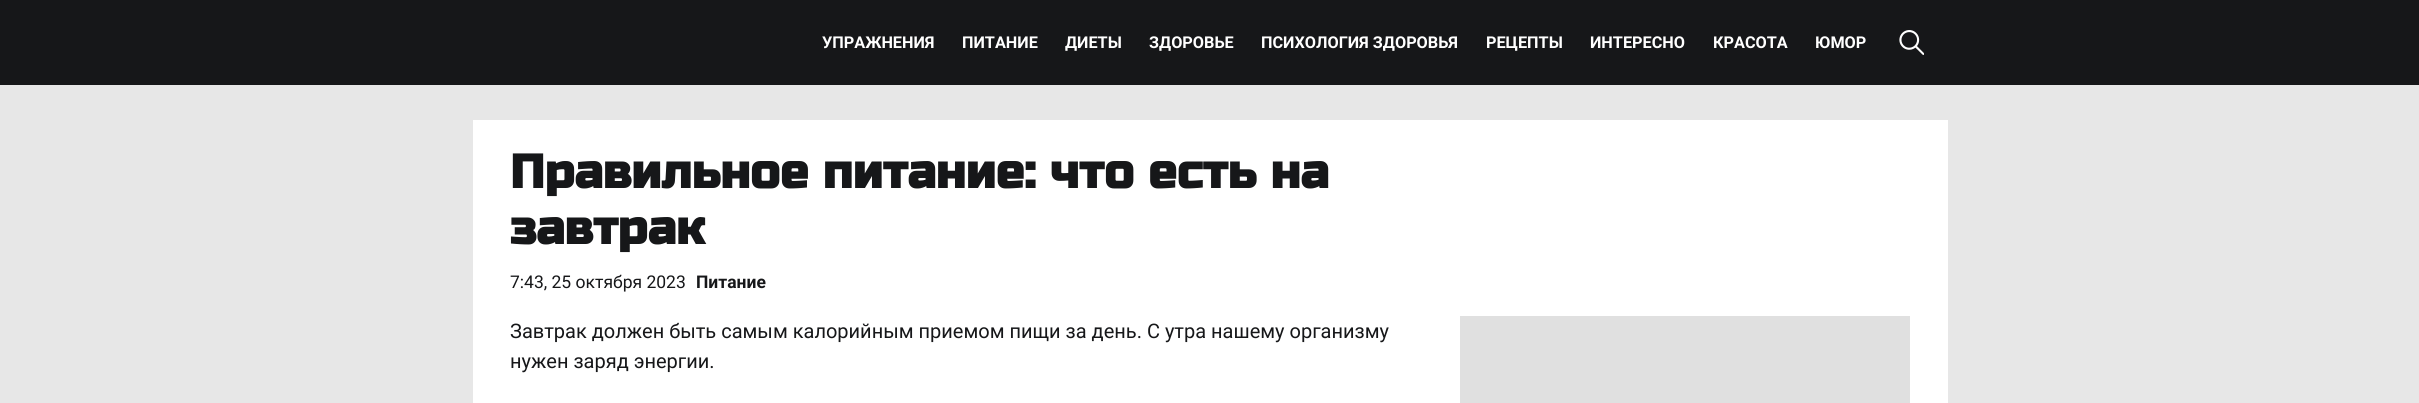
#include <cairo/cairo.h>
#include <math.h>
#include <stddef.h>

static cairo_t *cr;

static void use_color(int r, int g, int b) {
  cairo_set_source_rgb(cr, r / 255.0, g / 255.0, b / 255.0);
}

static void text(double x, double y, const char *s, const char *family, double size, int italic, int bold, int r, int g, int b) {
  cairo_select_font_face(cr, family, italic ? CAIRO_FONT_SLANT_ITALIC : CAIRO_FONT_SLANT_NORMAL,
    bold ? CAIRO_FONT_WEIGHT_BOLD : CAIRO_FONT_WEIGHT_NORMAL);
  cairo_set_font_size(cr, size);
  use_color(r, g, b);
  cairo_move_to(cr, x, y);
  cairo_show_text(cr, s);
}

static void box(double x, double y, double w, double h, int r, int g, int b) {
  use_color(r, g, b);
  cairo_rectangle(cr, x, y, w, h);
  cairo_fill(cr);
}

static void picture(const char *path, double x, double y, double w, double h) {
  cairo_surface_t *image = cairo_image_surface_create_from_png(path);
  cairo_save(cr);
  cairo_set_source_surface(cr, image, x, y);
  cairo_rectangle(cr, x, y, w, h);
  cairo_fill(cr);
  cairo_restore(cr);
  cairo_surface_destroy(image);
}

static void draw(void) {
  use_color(231, 231, 231);
  cairo_paint(cr);
  box(0, 0, 2419, 85, 22, 23, 25);
  picture("img_01.png", 1899, 30, 25, 25);
  box(473, 120, 1475, 283, 255, 255, 255);
  box(1460, 316, 450, 87, 224, 224, 224);
  text(822, 48, "УПРАЖНЕНИЯ", "Roboto", 16.25, 0, 1, 255, 255, 255);
  text(962, 48, "ПИТАНИЕ", "Roboto", 16.25, 0, 1, 255, 255, 255);
  text(1065, 48, "ДИЕТЫ", "Roboto", 16.25, 0, 1, 255, 255, 255);
  text(1149, 48, "ЗДОРОВЬЕ", "Roboto", 16.25, 0, 1, 255, 255, 255);
  text(1261, 48, "ПСИХОЛОГИЯ ЗДОРОВЬЯ", "Roboto", 16.25, 0, 1, 255, 255, 255);
  text(1486, 48, "РЕЦЕПТЫ", "Roboto", 16.25, 0, 1, 255, 255, 255);
  text(1590, 48, "ИНТЕРЕСНО", "Roboto", 16.25, 0, 1, 255, 255, 255);
  text(1713, 48, "КРАСОТА", "Roboto", 16.25, 0, 1, 255, 255, 255);
  text(1815, 48, "ЮМОР", "Roboto", 16.25, 0, 1, 255, 255, 255);
  text(510, 188, "Правильное питание: что есть на", "Russo One", 47.5, 0, 1, 22, 23, 25);
  text(510, 244, "завтрак", "Russo One", 47.5, 0, 1, 22, 23, 25);
  text(510, 288, "7:43, 25 октября 2023", "Roboto", 17.5, 0, 0, 22, 23, 25);
  text(696, 288, "Питание", "Roboto", 17.5, 0, 1, 22, 23, 25);
  text(510, 338, "Завтрак должен быть самым калорийным приемом пищи за день. С утра нашему организму", "Roboto", 20, 0, 0, 22, 23, 25);
  text(510, 368, "нужен заряд энергии.", "Roboto", 20, 0, 0, 22, 23, 25);
}

int main(void) {
  cairo_surface_t *surface = cairo_image_surface_create(CAIRO_FORMAT_RGB24, 2419, 403);
  cr = cairo_create(surface);
  cairo_font_options_t *options = cairo_font_options_create();
  cairo_font_options_set_hint_metrics(options, CAIRO_HINT_METRICS_OFF);
  cairo_font_options_set_hint_style(options, CAIRO_HINT_STYLE_NONE);
  cairo_set_font_options(cr, options);
  cairo_set_miter_limit(cr, 4);
  draw();
  cairo_surface_write_to_png(surface, "out.png");
  cairo_font_options_destroy(options);
  cairo_destroy(cr);
  cairo_surface_destroy(surface);
  return 0;
}
